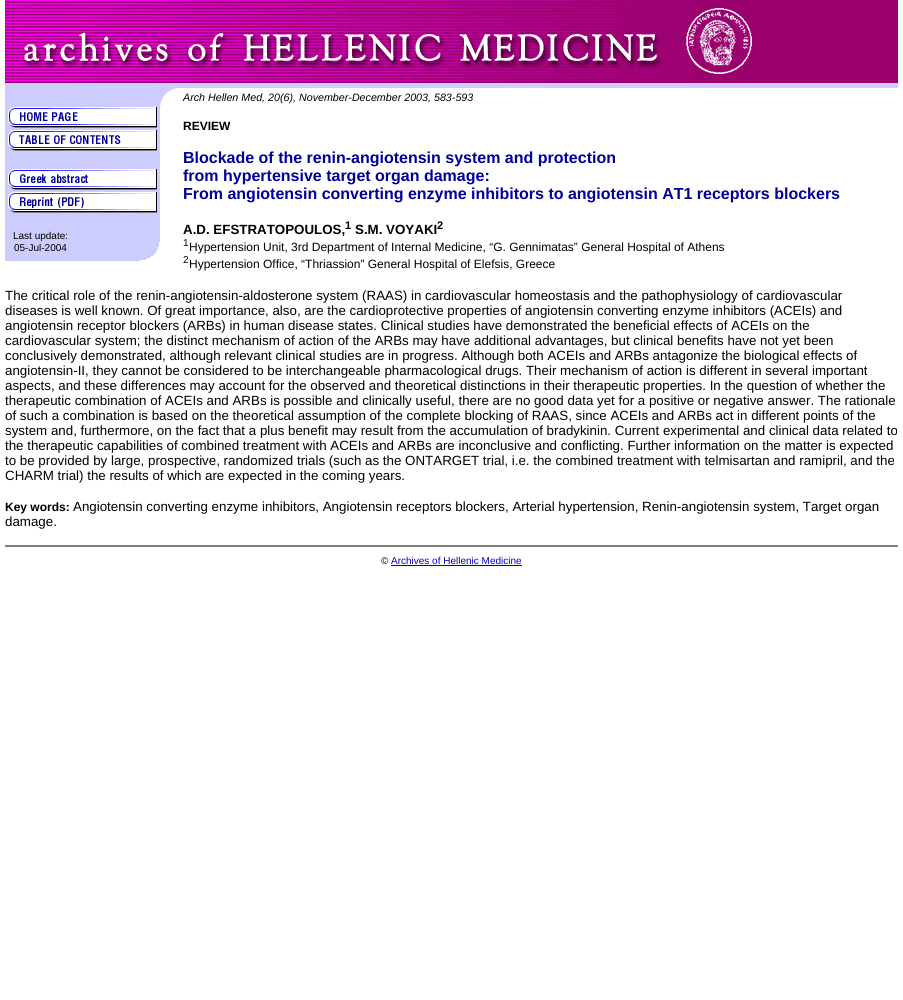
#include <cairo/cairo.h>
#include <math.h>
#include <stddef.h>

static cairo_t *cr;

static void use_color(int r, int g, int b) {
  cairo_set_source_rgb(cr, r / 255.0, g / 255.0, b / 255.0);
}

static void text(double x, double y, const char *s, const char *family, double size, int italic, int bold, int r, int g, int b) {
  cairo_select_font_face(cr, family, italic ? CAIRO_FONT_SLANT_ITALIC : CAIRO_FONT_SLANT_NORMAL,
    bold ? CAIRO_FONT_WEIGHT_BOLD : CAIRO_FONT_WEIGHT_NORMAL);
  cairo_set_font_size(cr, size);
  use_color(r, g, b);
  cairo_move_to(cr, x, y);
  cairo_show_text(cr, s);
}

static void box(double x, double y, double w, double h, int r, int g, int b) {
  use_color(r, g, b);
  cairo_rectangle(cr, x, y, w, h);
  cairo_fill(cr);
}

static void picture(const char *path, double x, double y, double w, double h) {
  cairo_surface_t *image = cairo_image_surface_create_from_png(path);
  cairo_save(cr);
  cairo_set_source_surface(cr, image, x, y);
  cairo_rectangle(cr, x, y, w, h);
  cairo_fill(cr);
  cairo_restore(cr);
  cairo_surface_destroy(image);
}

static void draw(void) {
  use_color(255, 255, 255);
  cairo_paint(cr);
  picture("img_01.png", 5, 0, 893, 88);
  picture("img_02.png", 5, 0, 747, 83);
  picture("img_03.png", 160, 88, 18, 19);
  box(5, 88, 155, 153, 204, 204, 255);
  picture("img_04.png", 8, 107, 149, 22);
  picture("img_05.png", 8, 130, 149, 22);
  picture("img_06.png", 8, 169, 149, 22);
  picture("img_07.png", 8, 192, 149, 22);
  box(5, 241, 155, 20, 204, 204, 255);
  picture("img_08.png", 140, 242, 20, 19);
  box(5, 545, 893, 2, 128, 128, 128);
  box(391, 565, 131, 1, 0, 0, 204);
  text(13, 239, "Last update:", "Liberation Sans", 10, 0, 0, 0, 0, 0);
  text(14, 251, "05-Jul-2004", "Liberation Sans", 10, 0, 0, 0, 0, 0);
  text(183, 101, "Arch Hellen Med, 20(6), November-December 2003, 583-593", "Liberation Sans", 10.7, 1, 0, 0, 0, 0);
  text(183, 130, "REVIEW", "Liberation Sans", 12, 0, 1, 0, 0, 0);
  text(183, 163, "Blockade of the renin-angiotensin system and protection", "Liberation Sans", 16, 0, 1, 0, 0, 153);
  text(183, 181, "from hypertensive target organ damage:", "Liberation Sans", 16, 0, 1, 0, 0, 153);
  text(183, 199, "From angiotensin converting enzyme inhibitors to angiotensin AT1 receptors blockers", "Liberation Sans", 16, 0, 1, 0, 0, 153);
  text(183, 234, "A.D. EFSTRATOPOULOS,", "Liberation Sans", 13.33, 0, 1, 0, 0, 0);
  text(345, 229, "1", "Liberation Sans", 11, 0, 1, 0, 0, 0);
  text(355, 234, "S.M. VOYAKI", "Liberation Sans", 13.33, 0, 1, 0, 0, 0);
  text(437, 229, "2", "Liberation Sans", 11, 0, 1, 0, 0, 0);
  text(183, 246, "1", "Liberation Sans", 10, 0, 0, 0, 0, 0);
  text(189, 251, "Hypertension Unit, 3rd Department of Internal Medicine, “G. Gennimatas” General Hospital of Athens", "Liberation Sans", 12, 0, 0, 0, 0, 0);
  text(183, 263, "2", "Liberation Sans", 10, 0, 0, 0, 0, 0);
  text(189, 268, "Hypertension Office, “Thriassion” General Hospital of Elefsis, Greece", "Liberation Sans", 12, 0, 0, 0, 0, 0);
  text(5, 300, "The critical role of the renin-angiotensin-aldosterone system (RAAS) in cardiovascular homeostasis and the pathophysiology of cardiovascular", "Liberation Sans", 13.33, 0, 0, 0, 0, 0);
  text(5, 315, "diseases is well known. Of great importance, also, are the cardioprotective properties of angiotensin converting enzyme inhibitors (ACEIs) and", "Liberation Sans", 13.33, 0, 0, 0, 0, 0);
  text(5, 330, "angiotensin receptor blockers (ARBs) in human disease states. Clinical studies have demonstrated the beneficial effects of ACEIs on the", "Liberation Sans", 13.33, 0, 0, 0, 0, 0);
  text(5, 345, "cardiovascular system; the distinct mechanism of action of the ARBs may have additional advantages, but clinical benefits have not yet been", "Liberation Sans", 13.33, 0, 0, 0, 0, 0);
  text(5, 360, "conclusively demonstrated, although relevant clinical studies are in progress. Although both ACEIs and ARBs antagonize the biological effects of", "Liberation Sans", 13.33, 0, 0, 0, 0, 0);
  text(5, 375, "angiotensin-II, they cannot be considered to be interchangeable pharmacological drugs. Their mechanism of action is different in several important", "Liberation Sans", 13.33, 0, 0, 0, 0, 0);
  text(5, 390, "aspects, and these differences may account for the observed and theoretical distinctions in their therapeutic properties. In the question of whether the", "Liberation Sans", 13.33, 0, 0, 0, 0, 0);
  text(5, 405, "therapeutic combination of ACEIs and ARBs is possible and clinically useful, there are no good data yet for a positive or negative answer. The rationale", "Liberation Sans", 13.33, 0, 0, 0, 0, 0);
  text(5, 420, "of such a combination is based on the theoretical assumption of the complete blocking of RAAS, since ACEIs and ARBs act in different points of the", "Liberation Sans", 13.33, 0, 0, 0, 0, 0);
  text(5, 435, "system and, furthermore, on the fact that a plus benefit may result from the accumulation of bradykinin. Current experimental and clinical data related to", "Liberation Sans", 13.33, 0, 0, 0, 0, 0);
  text(5, 450, "the therapeutic capabilities of combined treatment with ACEIs and ARBs are inconclusive and conflicting. Further information on the matter is expected", "Liberation Sans", 13.33, 0, 0, 0, 0, 0);
  text(5, 465, "to be provided by large, prospective, randomized trials (such as the ONTARGET trial, i.e. the combined treatment with telmisartan and ramipril, and the", "Liberation Sans", 13.33, 0, 0, 0, 0, 0);
  text(5, 480, "CHARM trial) the results of which are expected in the coming years.", "Liberation Sans", 13.33, 0, 0, 0, 0, 0);
  text(5, 511, "Key words:", "Liberation Sans", 12, 0, 1, 0, 0, 0);
  text(73, 511, "Angiotensin converting enzyme inhibitors, Angiotensin receptors blockers, Arterial hypertension, Renin-angiotensin system, Target organ", "Liberation Sans", 13.33, 0, 0, 0, 0, 0);
  text(5, 526, "damage.", "Liberation Sans", 13.33, 0, 0, 0, 0, 0);
  text(381, 564, "©", "Liberation Sans", 10, 0, 0, 0, 0, 0);
  text(391, 564, "Archives of Hellenic Medicine", "Liberation Sans", 10, 0, 0, 0, 0, 204);
}

int main(void) {
  cairo_surface_t *surface = cairo_image_surface_create(CAIRO_FORMAT_RGB24, 903, 1000);
  cr = cairo_create(surface);
  cairo_font_options_t *options = cairo_font_options_create();
  cairo_font_options_set_hint_metrics(options, CAIRO_HINT_METRICS_OFF);
  cairo_font_options_set_hint_style(options, CAIRO_HINT_STYLE_NONE);
  cairo_set_font_options(cr, options);
  cairo_set_miter_limit(cr, 4);
  draw();
  cairo_surface_write_to_png(surface, "out.png");
  cairo_font_options_destroy(options);
  cairo_destroy(cr);
  cairo_surface_destroy(surface);
  return 0;
}
